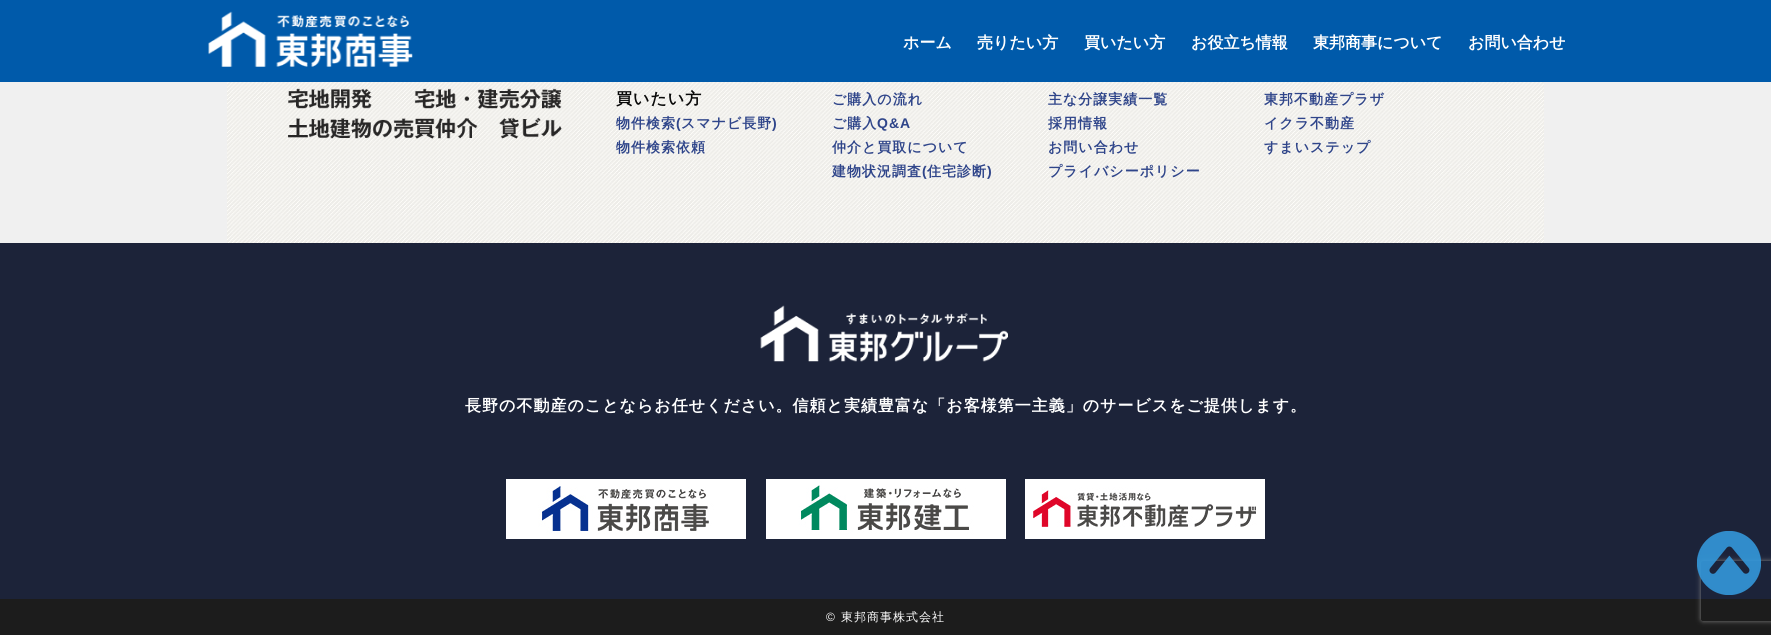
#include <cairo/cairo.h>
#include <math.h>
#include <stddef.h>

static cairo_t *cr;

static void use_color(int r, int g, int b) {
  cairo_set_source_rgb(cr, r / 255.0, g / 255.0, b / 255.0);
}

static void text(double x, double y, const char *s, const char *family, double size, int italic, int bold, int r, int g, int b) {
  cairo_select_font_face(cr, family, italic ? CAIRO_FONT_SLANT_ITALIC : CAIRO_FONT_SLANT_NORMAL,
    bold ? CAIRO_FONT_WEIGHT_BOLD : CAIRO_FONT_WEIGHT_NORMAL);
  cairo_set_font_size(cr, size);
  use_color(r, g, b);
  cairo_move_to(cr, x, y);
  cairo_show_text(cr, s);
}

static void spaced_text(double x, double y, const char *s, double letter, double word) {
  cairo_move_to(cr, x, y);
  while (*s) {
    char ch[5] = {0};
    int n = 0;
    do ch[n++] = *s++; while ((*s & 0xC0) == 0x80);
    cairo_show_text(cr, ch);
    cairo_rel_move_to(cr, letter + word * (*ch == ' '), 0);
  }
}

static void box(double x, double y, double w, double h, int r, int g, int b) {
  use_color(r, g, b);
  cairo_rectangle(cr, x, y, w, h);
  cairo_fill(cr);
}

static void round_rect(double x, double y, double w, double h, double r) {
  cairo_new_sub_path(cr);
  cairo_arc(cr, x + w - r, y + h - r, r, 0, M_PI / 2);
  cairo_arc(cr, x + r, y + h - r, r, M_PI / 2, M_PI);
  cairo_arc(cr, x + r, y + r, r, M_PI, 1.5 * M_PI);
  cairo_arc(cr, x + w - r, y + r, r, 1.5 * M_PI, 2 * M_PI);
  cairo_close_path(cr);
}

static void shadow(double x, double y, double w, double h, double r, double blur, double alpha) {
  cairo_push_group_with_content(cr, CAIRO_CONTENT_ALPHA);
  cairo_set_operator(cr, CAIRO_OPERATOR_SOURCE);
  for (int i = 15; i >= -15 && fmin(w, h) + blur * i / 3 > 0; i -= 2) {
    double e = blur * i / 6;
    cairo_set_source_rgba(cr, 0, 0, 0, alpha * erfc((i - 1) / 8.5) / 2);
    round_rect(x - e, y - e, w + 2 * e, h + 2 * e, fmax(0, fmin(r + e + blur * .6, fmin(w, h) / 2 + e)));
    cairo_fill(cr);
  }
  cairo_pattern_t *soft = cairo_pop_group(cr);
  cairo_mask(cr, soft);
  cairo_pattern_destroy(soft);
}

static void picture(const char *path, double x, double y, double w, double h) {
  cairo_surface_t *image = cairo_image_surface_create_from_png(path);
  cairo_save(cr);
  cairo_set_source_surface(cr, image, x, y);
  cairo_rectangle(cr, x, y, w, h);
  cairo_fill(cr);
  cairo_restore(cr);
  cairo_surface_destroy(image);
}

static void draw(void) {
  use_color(28, 28, 28);
  cairo_paint(cr);
  box(0, 0, 1771, 82, 0, 90, 170);
  picture("img_01.png", 208, 11, 205, 56);
  box(0, 82, 1771, 161, 240, 240, 240);
  picture("img_02.png", 227, 82, 1317, 161);
  picture("img_03.png", 288, 88, 274, 51);
  box(0, 243, 1771, 356, 28, 35, 57);
  picture("img_04.png", 760, 305, 248, 57);
  picture("img_05.png", 506, 479, 240, 60);
  picture("img_06.png", 766, 479, 240, 60);
  picture("img_07.png", 1025, 479, 240, 60);
  cairo_save(cr);
  cairo_set_fill_rule(cr, CAIRO_FILL_RULE_EVEN_ODD);
  cairo_new_path(cr);
  cairo_move_to(cr, 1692, 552);
  cairo_line_to(cr, 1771, 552);
  cairo_line_to(cr, 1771, 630);
  cairo_line_to(cr, 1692, 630);
  cairo_close_path(cr);
  cairo_move_to(cr, 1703, 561);
  cairo_line_to(cr, 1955, 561);
  cairo_curve_to(cr, 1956, 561, 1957, 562, 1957, 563);
  cairo_line_to(cr, 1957, 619);
  cairo_curve_to(cr, 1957, 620, 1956, 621, 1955, 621);
  cairo_line_to(cr, 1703, 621);
  cairo_curve_to(cr, 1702, 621, 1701, 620, 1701, 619);
  cairo_line_to(cr, 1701, 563);
  cairo_curve_to(cr, 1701, 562, 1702, 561, 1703, 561);
  cairo_close_path(cr);
  cairo_clip(cr);
  use_color(128, 128, 128);
  shadow(1701, 561, 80, 60, 2, 2.5, 1);
  cairo_restore(cr);
  picture("img_08.png", 1697, 531, 64, 64);
  text(903, 48, "ホーム", "WenQuanYi Zen Hei", 16, 0, 1, 255, 255, 255);
  text(977, 48, "売りたい方", "WenQuanYi Zen Hei", 16, 0, 1, 255, 255, 255);
  text(1084, 48, "買いたい方", "WenQuanYi Zen Hei", 16, 0, 1, 255, 255, 255);
  text(1191, 48, "お役立ち情報", "WenQuanYi Zen Hei", 16, 0, 1, 255, 255, 255);
  text(1313, 48, "東邦商事について", "WenQuanYi Zen Hei", 16, 0, 1, 255, 255, 255);
  text(1468, 48, "お問い合わせ", "WenQuanYi Zen Hei", 16, 0, 1, 255, 255, 255);
  use_color(9, 9, 9);
  spaced_text(616, 104, "買いたい方", 1, 0);
  cairo_set_font_size(cr, 14);
  use_color(47, 69, 138);
  spaced_text(616, 128, "物件検索", 1, 0);
  cairo_select_font_face(cr, "Liberation Sans", CAIRO_FONT_SLANT_NORMAL, CAIRO_FONT_WEIGHT_BOLD);
  spaced_text(676, 128, "(", 1, 0);
  cairo_select_font_face(cr, "WenQuanYi Zen Hei", CAIRO_FONT_SLANT_NORMAL, CAIRO_FONT_WEIGHT_BOLD);
  spaced_text(681, 128, "スマナビ長野", 1, 0);
  cairo_select_font_face(cr, "Liberation Sans", CAIRO_FONT_SLANT_NORMAL, CAIRO_FONT_WEIGHT_BOLD);
  spaced_text(772, 128, ")", 1, 0);
  cairo_select_font_face(cr, "WenQuanYi Zen Hei", CAIRO_FONT_SLANT_NORMAL, CAIRO_FONT_WEIGHT_BOLD);
  spaced_text(616, 152, "物件検索依頼", 1, 0);
  spaced_text(832, 104, "ご購入の流れ", 1, 0);
  spaced_text(832, 128, "ご購入", 1, 0);
  cairo_select_font_face(cr, "Liberation Sans", CAIRO_FONT_SLANT_NORMAL, CAIRO_FONT_WEIGHT_BOLD);
  spaced_text(877, 128, "Q&A", 1, 0);
  cairo_select_font_face(cr, "WenQuanYi Zen Hei", CAIRO_FONT_SLANT_NORMAL, CAIRO_FONT_WEIGHT_BOLD);
  spaced_text(832, 152, "仲介と買取について", 1, 0);
  spaced_text(832, 176, "建物状況調査", 1, 0);
  cairo_select_font_face(cr, "Liberation Sans", CAIRO_FONT_SLANT_NORMAL, CAIRO_FONT_WEIGHT_BOLD);
  spaced_text(922, 176, "(", 1, 0);
  cairo_select_font_face(cr, "WenQuanYi Zen Hei", CAIRO_FONT_SLANT_NORMAL, CAIRO_FONT_WEIGHT_BOLD);
  spaced_text(927, 176, "住宅診断", 1, 0);
  cairo_select_font_face(cr, "Liberation Sans", CAIRO_FONT_SLANT_NORMAL, CAIRO_FONT_WEIGHT_BOLD);
  spaced_text(987, 176, ")", 1, 0);
  cairo_select_font_face(cr, "WenQuanYi Zen Hei", CAIRO_FONT_SLANT_NORMAL, CAIRO_FONT_WEIGHT_BOLD);
  spaced_text(1048, 104, "主な分譲実績一覧", 1, 0);
  spaced_text(1048, 128, "採用情報", 1, 0);
  spaced_text(1048, 152, "お問い合わせ", 1, 0);
  spaced_text(1048, 176, "プライバシーポリシー", 1, 0);
  spaced_text(1264, 104, "東邦不動産プラザ", 1, 0);
  spaced_text(1264, 128, "イクラ不動産", 1, 0);
  spaced_text(1264, 152, "すまいステップ", 1, 0);
  cairo_set_font_size(cr, 16);
  use_color(255, 255, 255);
  spaced_text(465, 411, "長野の不動産のことならお任せください。信頼と実績豊富な「お客様第一主義」のサービスをご提供します。", 1, 0);
  cairo_select_font_face(cr, "Liberation Sans", CAIRO_FONT_SLANT_NORMAL, CAIRO_FONT_WEIGHT_NORMAL);
  cairo_set_font_size(cr, 12);
  spaced_text(826, 621, "©", 1, 0);
  cairo_select_font_face(cr, "WenQuanYi Zen Hei Medium", CAIRO_FONT_SLANT_NORMAL, CAIRO_FONT_WEIGHT_NORMAL);
  spaced_text(841, 621, "東邦商事株式会社", 1, 0);
}

int main(void) {
  cairo_surface_t *surface = cairo_image_surface_create(CAIRO_FORMAT_RGB24, 1771, 635);
  cr = cairo_create(surface);
  cairo_font_options_t *options = cairo_font_options_create();
  cairo_font_options_set_hint_metrics(options, CAIRO_HINT_METRICS_OFF);
  cairo_font_options_set_hint_style(options, CAIRO_HINT_STYLE_NONE);
  cairo_set_font_options(cr, options);
  cairo_set_miter_limit(cr, 4);
  draw();
  cairo_surface_write_to_png(surface, "out.png");
  cairo_font_options_destroy(options);
  cairo_destroy(cr);
  cairo_surface_destroy(surface);
  return 0;
}
